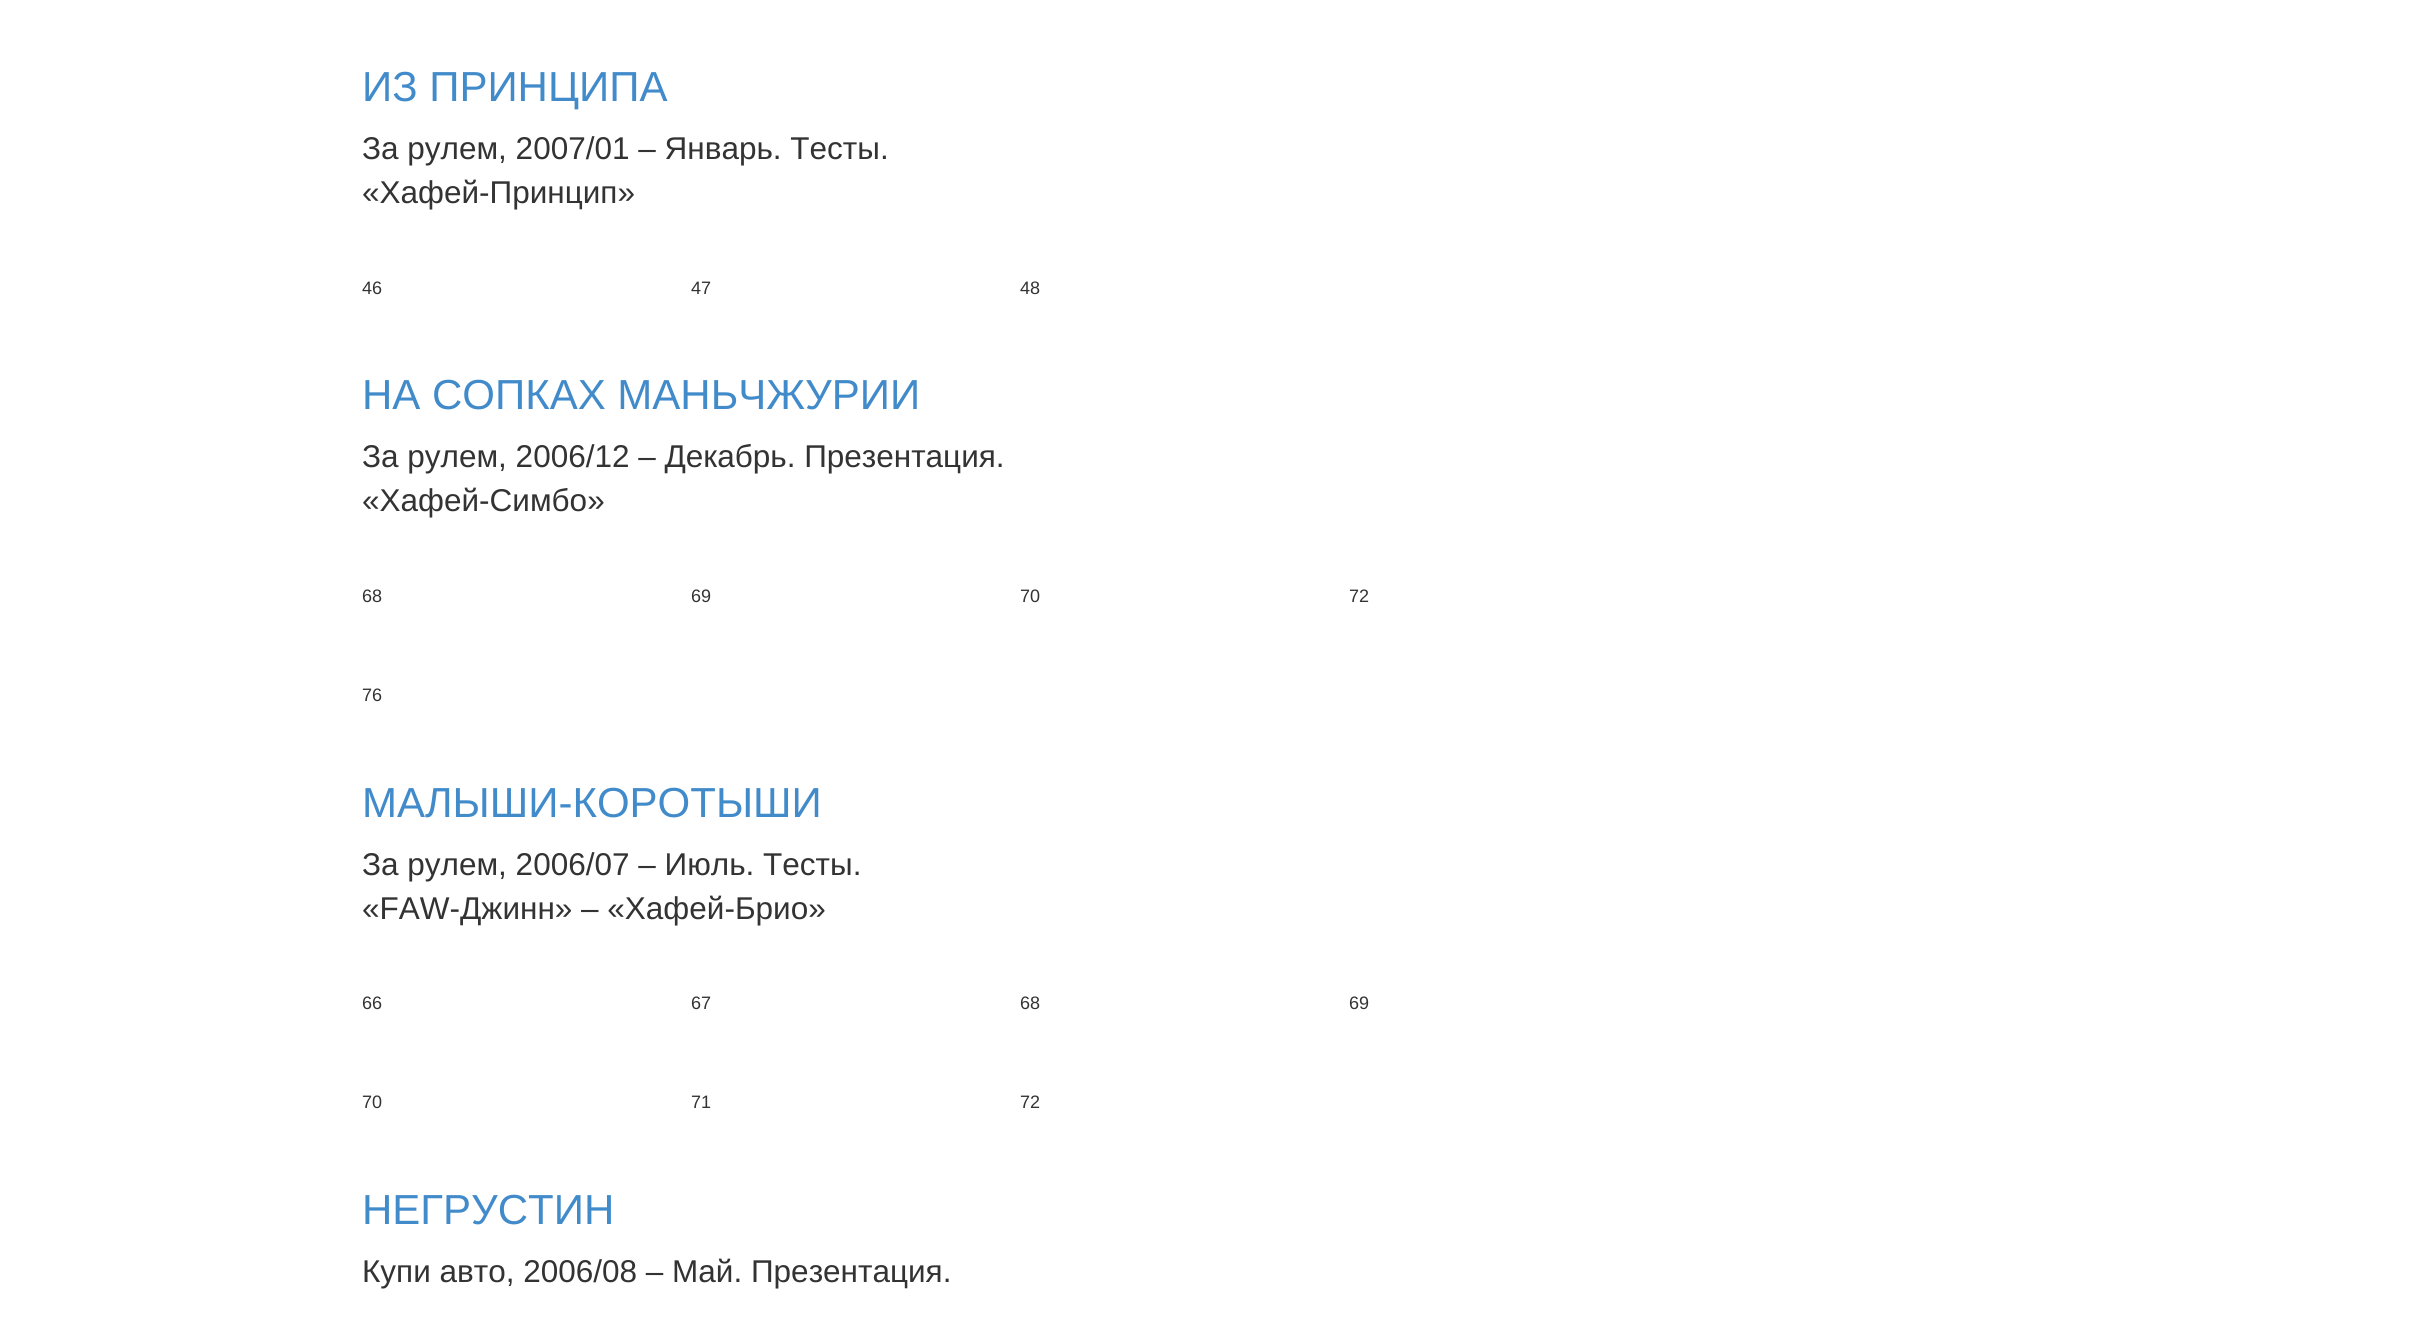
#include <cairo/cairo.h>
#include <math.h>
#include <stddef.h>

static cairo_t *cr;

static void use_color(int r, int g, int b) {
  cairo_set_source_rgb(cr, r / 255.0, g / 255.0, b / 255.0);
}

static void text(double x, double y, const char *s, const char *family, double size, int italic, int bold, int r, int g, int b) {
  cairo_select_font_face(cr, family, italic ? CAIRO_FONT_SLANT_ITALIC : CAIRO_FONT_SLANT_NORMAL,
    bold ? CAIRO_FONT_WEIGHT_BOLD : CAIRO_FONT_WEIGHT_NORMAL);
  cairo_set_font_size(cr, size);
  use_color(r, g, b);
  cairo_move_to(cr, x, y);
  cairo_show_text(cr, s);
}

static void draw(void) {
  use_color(255, 255, 255);
  cairo_paint(cr);
  text(362, 101, "ИЗ ПРИНЦИПА", "Liberation Sans", 42, 0, 0, 66, 139, 202);
  text(362, 159, "За рулем, 2007/01 – Январь. Тесты.", "Liberation Sans", 31.5, 0, 0, 51, 51, 51);
  text(362, 203, "«Хафей-Принцип»", "Liberation Sans", 31.5, 0, 0, 51, 51, 51);
  text(362, 294, "46", "Liberation Sans", 18, 0, 0, 51, 51, 51);
  text(691, 294, "47", "Liberation Sans", 18, 0, 0, 51, 51, 51);
  text(1020, 294, "48", "Liberation Sans", 18, 0, 0, 51, 51, 51);
  text(362, 409, "НА СОПКАХ МАНЬЧЖУРИИ", "Liberation Sans", 42, 0, 0, 66, 139, 202);
  text(362, 467, "За рулем, 2006/12 – Декабрь. Презентация.", "Liberation Sans", 31.5, 0, 0, 51, 51, 51);
  text(362, 511, "«Хафей-Симбо»", "Liberation Sans", 31.5, 0, 0, 51, 51, 51);
  text(362, 602, "68", "Liberation Sans", 18, 0, 0, 51, 51, 51);
  text(691, 602, "69", "Liberation Sans", 18, 0, 0, 51, 51, 51);
  text(1020, 602, "70", "Liberation Sans", 18, 0, 0, 51, 51, 51);
  text(1349, 602, "72", "Liberation Sans", 18, 0, 0, 51, 51, 51);
  text(362, 701, "76", "Liberation Sans", 18, 0, 0, 51, 51, 51);
  text(362, 817, "МАЛЫШИ-КОРОТЫШИ", "Liberation Sans", 42, 0, 0, 66, 139, 202);
  text(362, 875, "За рулем, 2006/07 – Июль. Тесты.", "Liberation Sans", 31.5, 0, 0, 51, 51, 51);
  text(362, 919, "«FAW-Джинн» – «Хафей-Брио»", "Liberation Sans", 31.5, 0, 0, 51, 51, 51);
  text(362, 1009, "66", "Liberation Sans", 18, 0, 0, 51, 51, 51);
  text(691, 1009, "67", "Liberation Sans", 18, 0, 0, 51, 51, 51);
  text(1020, 1009, "68", "Liberation Sans", 18, 0, 0, 51, 51, 51);
  text(1349, 1009, "69", "Liberation Sans", 18, 0, 0, 51, 51, 51);
  text(362, 1108, "70", "Liberation Sans", 18, 0, 0, 51, 51, 51);
  text(691, 1108, "71", "Liberation Sans", 18, 0, 0, 51, 51, 51);
  text(1020, 1108, "72", "Liberation Sans", 18, 0, 0, 51, 51, 51);
  text(362, 1224, "НЕГРУСТИН", "Liberation Sans", 42, 0, 0, 66, 139, 202);
  text(362, 1282, "Купи авто, 2006/08 – Май. Презентация.", "Liberation Sans", 31.5, 0, 0, 51, 51, 51);
}

int main(void) {
  cairo_surface_t *surface = cairo_image_surface_create(CAIRO_FORMAT_RGB24, 2432, 1342);
  cr = cairo_create(surface);
  cairo_font_options_t *options = cairo_font_options_create();
  cairo_font_options_set_hint_metrics(options, CAIRO_HINT_METRICS_OFF);
  cairo_font_options_set_hint_style(options, CAIRO_HINT_STYLE_NONE);
  cairo_set_font_options(cr, options);
  cairo_set_miter_limit(cr, 4);
  draw();
  cairo_surface_write_to_png(surface, "out.png");
  cairo_font_options_destroy(options);
  cairo_destroy(cr);
  cairo_surface_destroy(surface);
  return 0;
}
